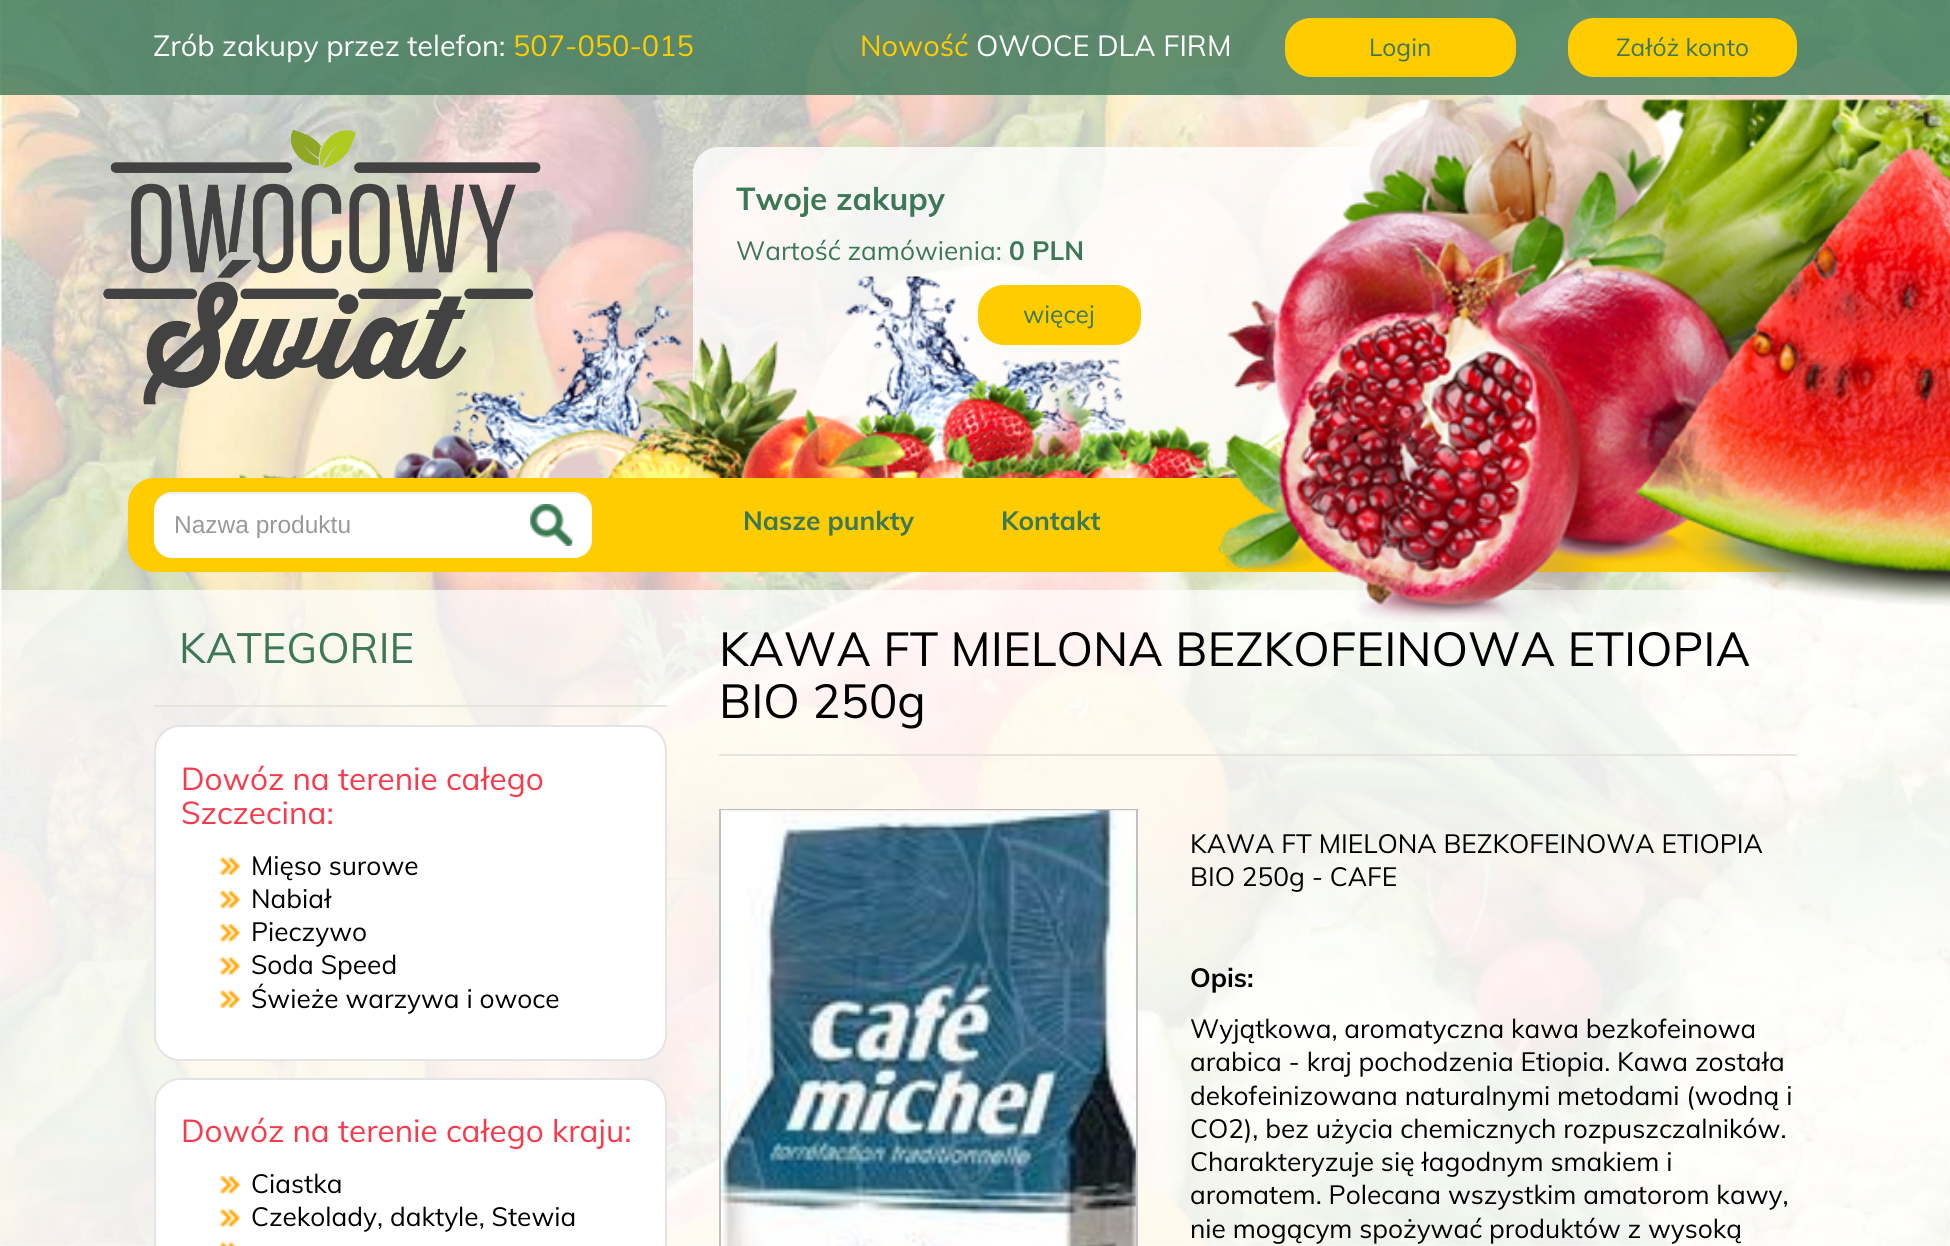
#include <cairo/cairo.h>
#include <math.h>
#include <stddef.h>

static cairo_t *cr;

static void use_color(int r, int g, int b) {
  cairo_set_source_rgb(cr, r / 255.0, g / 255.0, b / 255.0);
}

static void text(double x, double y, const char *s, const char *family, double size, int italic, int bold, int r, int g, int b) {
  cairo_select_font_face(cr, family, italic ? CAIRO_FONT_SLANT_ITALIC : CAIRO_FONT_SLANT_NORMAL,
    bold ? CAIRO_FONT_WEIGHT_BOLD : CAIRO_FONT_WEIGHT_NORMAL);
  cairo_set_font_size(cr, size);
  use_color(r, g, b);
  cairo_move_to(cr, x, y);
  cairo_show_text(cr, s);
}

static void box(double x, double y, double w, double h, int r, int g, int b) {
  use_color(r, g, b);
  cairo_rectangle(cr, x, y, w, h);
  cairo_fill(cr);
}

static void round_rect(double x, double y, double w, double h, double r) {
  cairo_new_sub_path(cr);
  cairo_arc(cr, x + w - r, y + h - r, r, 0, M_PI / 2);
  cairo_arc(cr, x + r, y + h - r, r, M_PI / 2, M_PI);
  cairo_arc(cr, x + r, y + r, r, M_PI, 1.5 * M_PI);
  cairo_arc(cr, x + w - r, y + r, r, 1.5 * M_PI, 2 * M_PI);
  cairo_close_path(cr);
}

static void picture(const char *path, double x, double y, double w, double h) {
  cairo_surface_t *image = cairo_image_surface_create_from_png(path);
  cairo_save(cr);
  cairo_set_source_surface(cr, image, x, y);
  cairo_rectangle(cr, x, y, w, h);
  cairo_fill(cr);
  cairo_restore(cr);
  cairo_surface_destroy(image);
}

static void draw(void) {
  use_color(255, 255, 255);
  cairo_paint(cr);
  picture("img_01.png", 0, 0, 1950, 1246);
  cairo_set_source_rgba(cr, 0.235, 0.467, 0.337, 0.8);
  cairo_rectangle(cr, 0, 0, 1950, 95);
  cairo_fill(cr);
  use_color(255, 204, 0);
  round_rect(1285, 18, 231, 59, 26);
  cairo_fill(cr);
  round_rect(1568, 18, 229, 59, 26);
  cairo_fill(cr);
  cairo_set_source_rgba(cr, 1, 1, 1, 0.8);
  round_rect(693, 147, 707, 331, 26);
  cairo_fill(cr);
  picture("img_04.png", 239, 267, 1498, 211);
  picture("img_02.png", 103, 129, 438, 276);
  use_color(255, 204, 0);
  round_rect(978, 285, 163, 60, 26);
  cairo_fill(cr);
  round_rect(128, 478, 1697, 94, 26);
  cairo_fill(cr);
  cairo_set_source_rgba(cr, 1, 1, 1, 0.7);
  cairo_rectangle(cr, 0, 590, 1950, 656);
  cairo_fill(cr);
  picture("img_03.png", 1218, 99, 732, 523);
  use_color(255, 255, 255);
  round_rect(154, 492, 438, 66, 18);
  cairo_fill(cr);
  cairo_set_source_rgba(cr, 0, 0, 0, 0.07);
  cairo_new_path(cr);
  cairo_move_to(cr, 172, 494);
  cairo_line_to(cr, 574, 494);
  cairo_curve_to(cr, 584, 494, 592, 501, 592, 511);
  cairo_line_to(cr, 592, 510);
  cairo_curve_to(cr, 592, 500, 584, 492, 574, 492);
  cairo_line_to(cr, 172, 492);
  cairo_curve_to(cr, 162, 492, 154, 500, 154, 510);
  cairo_line_to(cr, 154, 511);
  cairo_curve_to(cr, 154, 501, 162, 494, 172, 494);
  cairo_close_path(cr);
  cairo_fill(cr);
  picture("img_05.png", 530, 504, 43, 42);
  box(154, 705, 513, 2, 230, 228, 221);
  use_color(255, 255, 255);
  round_rect(155, 726, 511, 334, 25);
  cairo_fill_preserve(cr);
  use_color(228, 228, 228);
  cairo_stroke(cr);
  picture("img_06.png", 220, 857, 20, 18);
  picture("img_07.png", 220, 890, 20, 19);
  picture("img_08.png", 220, 924, 20, 18);
  picture("img_09.png", 220, 957, 20, 18);
  picture("img_06.png", 220, 990, 20, 18);
  use_color(255, 255, 255);
  round_rect(155, 1079, 511, 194, 25);
  cairo_fill_preserve(cr);
  use_color(228, 228, 228);
  cairo_stroke(cr);
  picture("img_08.png", 220, 1176, 20, 18);
  picture("img_09.png", 220, 1209, 20, 18);
  picture("img_10.png", 220, 1242, 17, 4);
  box(719, 754, 1078, 2, 230, 228, 221);
  cairo_rectangle(cr, 720, 810, 417, 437);
  use_color(192, 192, 192);
  cairo_stroke(cr);
  picture("img_11.png", 721, 810, 415, 436);
  text(153, 56, "Zrób zakupy przez telefon:", "Muli", 28.9, 0, 0, 255, 255, 255);
  text(513, 56, "507-050-015", "Muli", 28.9, 0, 0, 255, 204, 0);
  text(860, 56, "Nowość", "Muli", 28.9, 0, 0, 255, 204, 0);
  text(976, 56, "OWOCE DLA FIRM", "Muli", 28.9, 0, 0, 255, 255, 255);
  text(1369, 56, "Login", "Muli", 24.5, 0, 0, 60, 119, 86);
  text(1616, 56, "Załóż konto", "Muli", 24.5, 0, 0, 60, 119, 86);
  text(736, 210, "Twoje zakupy", "Muli", 31.5, 0, 1, 60, 119, 86);
  text(736, 260, "Wartość zamówienia:", "Muli", 26.25, 0, 0, 60, 119, 86);
  text(1009, 260, "0 PLN", "Muli", 26.25, 0, 1, 60, 119, 86);
  text(1023, 323, "więcej", "Muli", 24.5, 0, 0, 60, 119, 86);
  text(174, 533, "Nazwa produktu", "Liberation Sans", 24.5, 0, 0, 153, 153, 153);
  text(743, 530, "Nasze punkty", "Muli", 26.25, 0, 1, 60, 119, 86);
  text(1001, 530, "Kontakt", "Muli", 26.25, 0, 1, 60, 119, 86);
  text(179, 663, "KATEGORIE", "Muli", 42, 0, 0, 60, 119, 86);
  text(181, 790, "Dowóz na terenie całego", "Muli", 31.5, 0, 0, 250, 58, 75);
  text(181, 824, "Szczecina:", "Muli", 31.5, 0, 0, 250, 58, 75);
  text(251, 875, "Mięso surowe", "Muli", 26.25, 0, 0, 0, 0, 0);
  text(251, 908, "Nabiał", "Muli", 26.25, 0, 0, 0, 0, 0);
  text(251, 941, "Pieczywo", "Muli", 26.25, 0, 0, 0, 0, 0);
  text(251, 974, "Soda Speed", "Muli", 26.25, 0, 0, 0, 0, 0);
  text(251, 1008, "Świeże warzywa i owoce", "Muli", 26.25, 0, 0, 0, 0, 0);
  text(181, 1142, "Dowóz na terenie całego kraju:", "Muli", 31.5, 0, 0, 250, 58, 75);
  text(251, 1193, "Ciastka", "Muli", 26.25, 0, 0, 0, 0, 0);
  text(251, 1226, "Czekolady, daktyle, Stewia", "Muli", 26.25, 0, 0, 0, 0, 0);
  text(719, 666, "KAWA FT MIELONA BEZKOFEINOWA ETIOPIA", "Muli", 47.25, 0, 0, 0, 0, 0);
  text(719, 718, "BIO 250g", "Muli", 47.25, 0, 0, 0, 0, 0);
  text(1190, 853, "KAWA FT MIELONA BEZKOFEINOWA ETIOPIA", "Muli", 26.25, 0, 0, 0, 0, 0);
  text(1190, 886, "BIO 250g - CAFE", "Muli", 26.25, 0, 0, 0, 0, 0);
  text(1190, 987, "Opis:", "Muli", 26.25, 0, 1, 0, 0, 0);
  text(1190, 1038, "Wyjątkowa, aromatyczna kawa bezkofeinowa", "Muli", 26.25, 0, 0, 0, 0, 0);
  text(1190, 1071, "arabica - kraj pochodzenia Etiopia. Kawa została", "Muli", 26.25, 0, 0, 0, 0, 0);
  text(1190, 1105, "dekofeinizowana naturalnymi metodami (wodną i", "Muli", 26.25, 0, 0, 0, 0, 0);
  text(1190, 1138, "CO2), bez użycia chemicznych rozpuszczalników.", "Muli", 26.25, 0, 0, 0, 0, 0);
  text(1190, 1171, "Charakteryzuje się łagodnym smakiem i", "Muli", 26.25, 0, 0, 0, 0, 0);
  text(1190, 1204, "aromatem. Polecana wszystkim amatorom kawy,", "Muli", 26.25, 0, 0, 0, 0, 0);
  text(1190, 1238, "nie mogącym spożywać produktów z wysoką", "Muli", 26.25, 0, 0, 0, 0, 0);
}

int main(void) {
  cairo_surface_t *surface = cairo_image_surface_create(CAIRO_FORMAT_RGB24, 1950, 1246);
  cr = cairo_create(surface);
  cairo_font_options_t *options = cairo_font_options_create();
  cairo_font_options_set_hint_metrics(options, CAIRO_HINT_METRICS_OFF);
  cairo_font_options_set_hint_style(options, CAIRO_HINT_STYLE_NONE);
  cairo_set_font_options(cr, options);
  cairo_set_miter_limit(cr, 4);
  draw();
  cairo_surface_write_to_png(surface, "out.png");
  cairo_font_options_destroy(options);
  cairo_destroy(cr);
  cairo_surface_destroy(surface);
  return 0;
}
